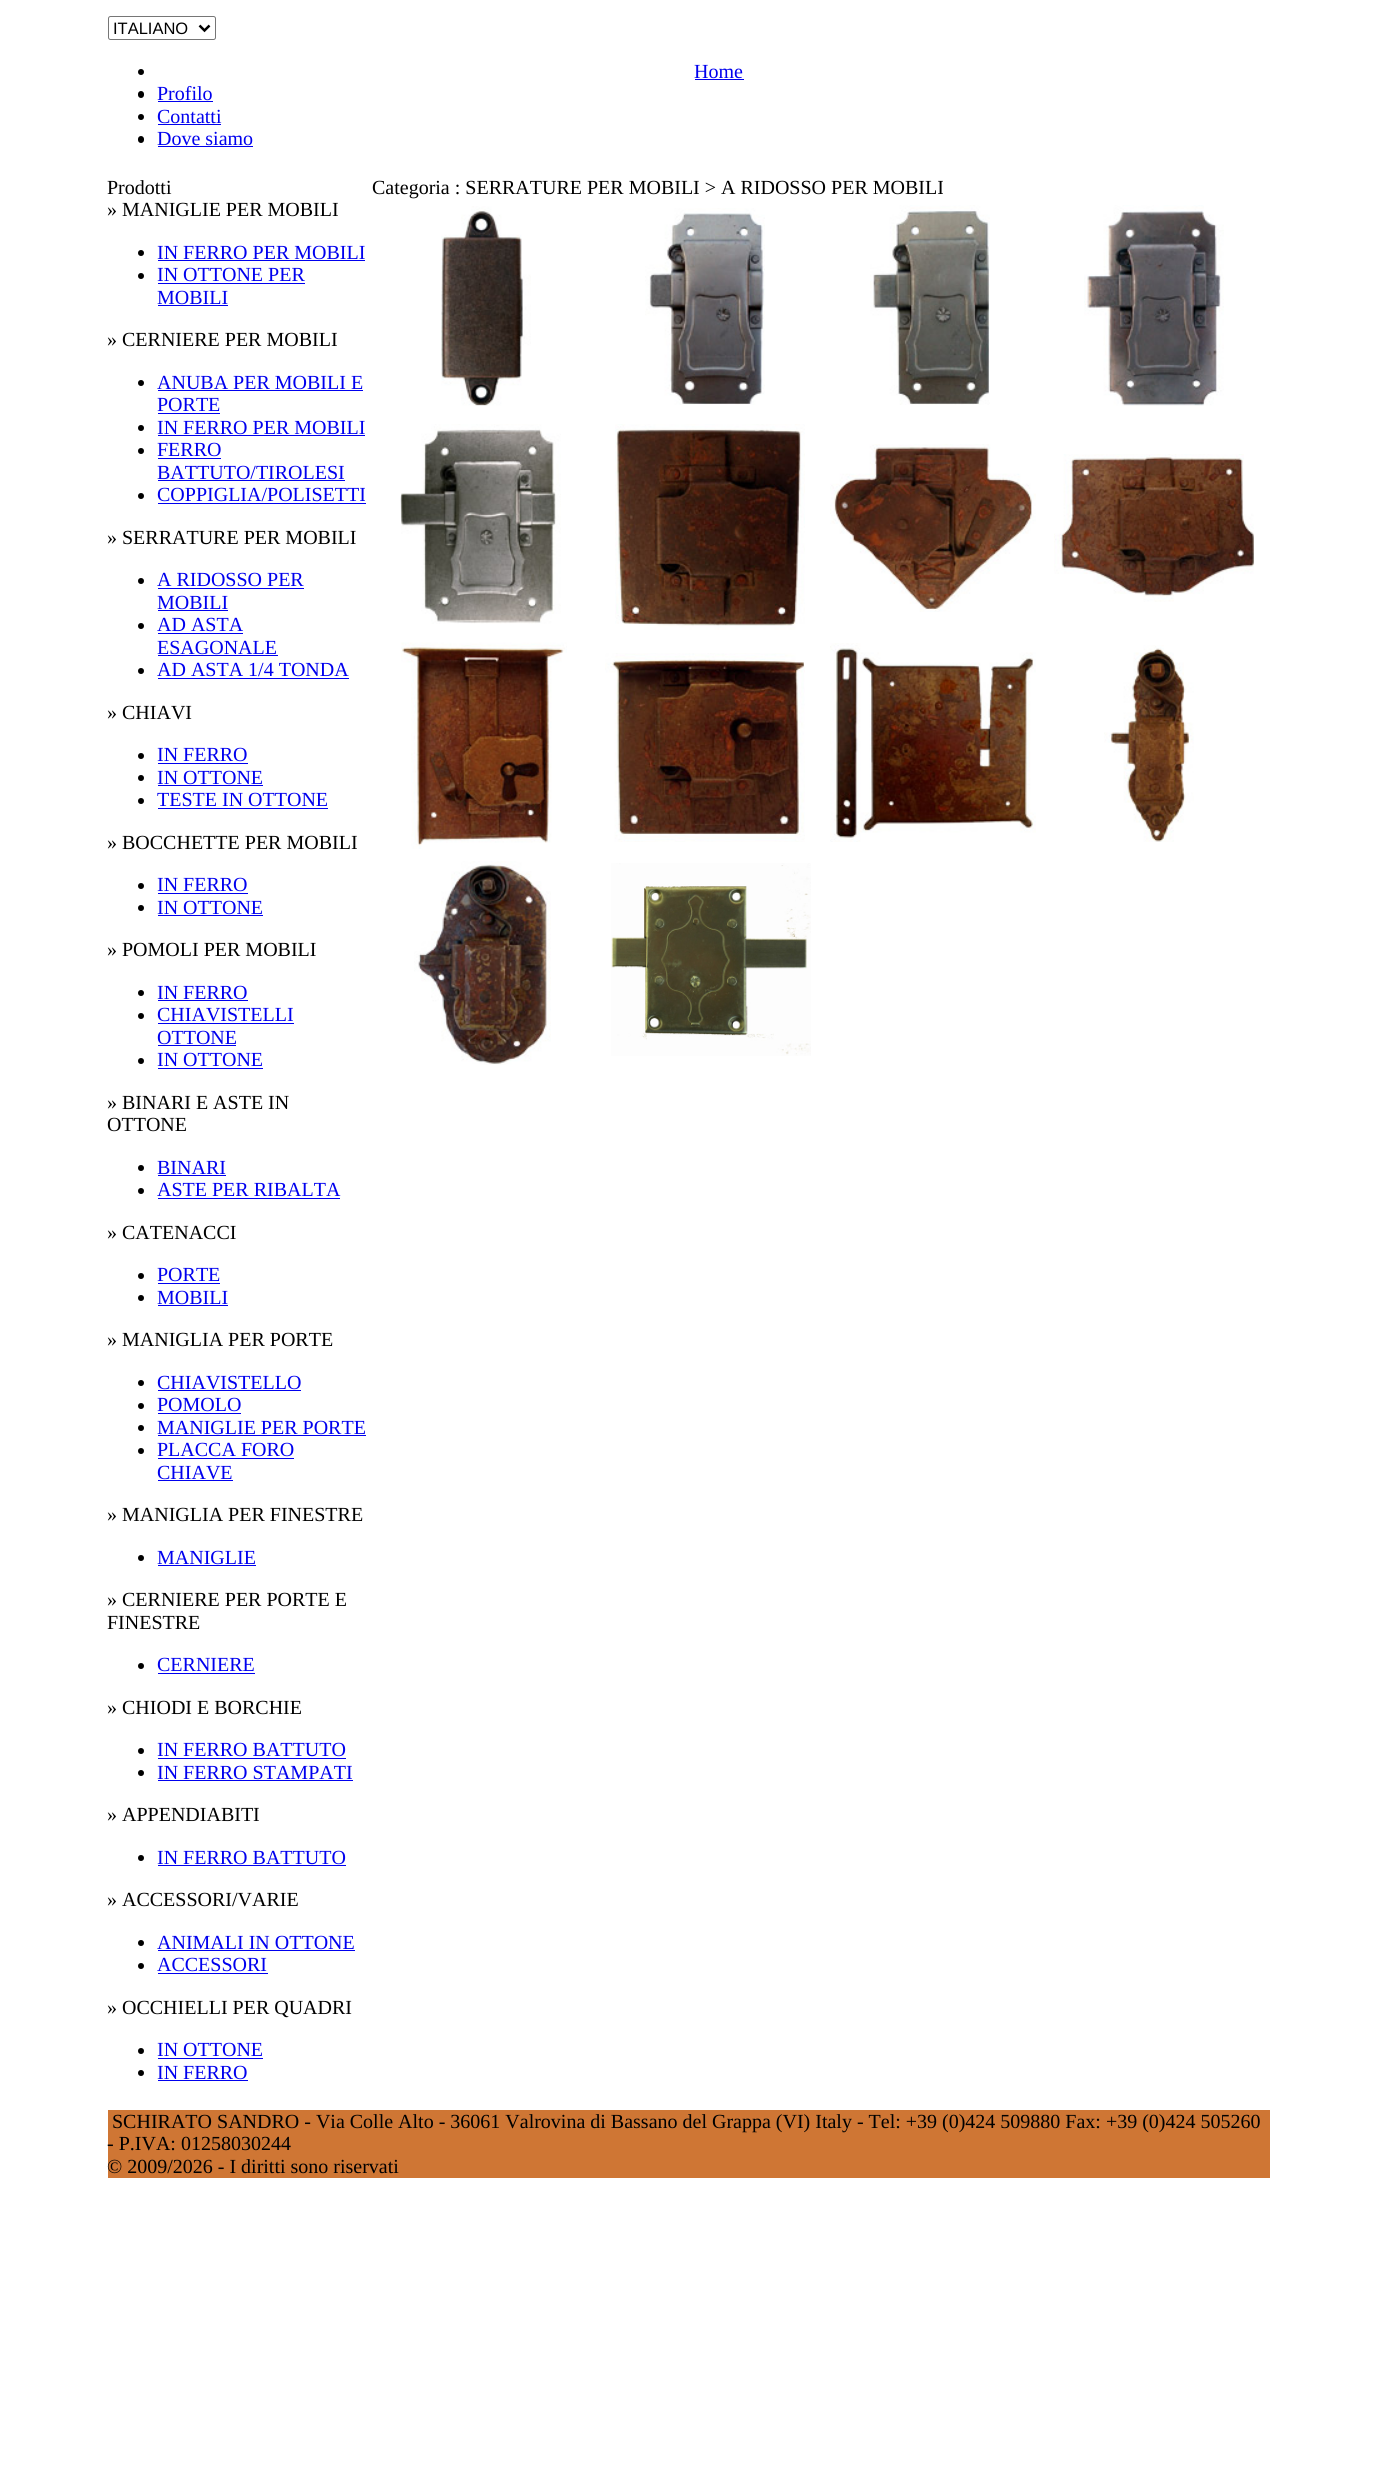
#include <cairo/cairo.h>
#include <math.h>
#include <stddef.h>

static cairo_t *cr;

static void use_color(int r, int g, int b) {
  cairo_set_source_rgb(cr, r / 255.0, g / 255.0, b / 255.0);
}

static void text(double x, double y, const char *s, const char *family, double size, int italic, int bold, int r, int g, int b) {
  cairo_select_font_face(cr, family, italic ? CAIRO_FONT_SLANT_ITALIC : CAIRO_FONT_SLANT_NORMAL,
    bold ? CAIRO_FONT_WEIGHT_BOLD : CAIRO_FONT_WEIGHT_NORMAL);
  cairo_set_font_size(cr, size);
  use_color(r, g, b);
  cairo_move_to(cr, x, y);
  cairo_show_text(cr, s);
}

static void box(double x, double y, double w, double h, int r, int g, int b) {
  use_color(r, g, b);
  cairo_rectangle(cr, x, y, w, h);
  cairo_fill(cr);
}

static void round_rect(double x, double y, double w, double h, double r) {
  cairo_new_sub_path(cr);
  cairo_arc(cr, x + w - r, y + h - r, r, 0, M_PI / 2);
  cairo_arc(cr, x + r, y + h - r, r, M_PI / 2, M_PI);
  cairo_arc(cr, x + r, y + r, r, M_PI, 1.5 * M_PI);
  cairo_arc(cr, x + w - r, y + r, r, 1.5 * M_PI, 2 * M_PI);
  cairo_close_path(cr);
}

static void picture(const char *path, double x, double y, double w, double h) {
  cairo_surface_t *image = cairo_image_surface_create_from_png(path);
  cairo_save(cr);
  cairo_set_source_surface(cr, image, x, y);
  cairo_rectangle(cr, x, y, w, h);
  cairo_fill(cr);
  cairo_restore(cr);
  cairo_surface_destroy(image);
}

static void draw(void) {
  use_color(255, 255, 255);
  cairo_paint(cr);
  round_rect(108.5, 16.5, 107, 23, 2);
  use_color(118, 118, 118);
  cairo_set_line_width(cr, 1);
  cairo_stroke(cr);
  cairo_new_path(cr);
  cairo_move_to(cr, 199.5, 25.5);
  cairo_line_to(cr, 204.5, 30.5);
  cairo_line_to(cr, 209.5, 25.5);
  use_color(0, 0, 0);
  cairo_set_line_width(cr, 2.5);
  cairo_stroke(cr);
  cairo_arc(cr, 141, 72, 3, 0, 2 * M_PI);
  cairo_fill(cr);
  box(695, 79, 49, 1, 0, 0, 238);
  use_color(0, 0, 0);
  round_rect(138, 91, 6, 7, 3);
  cairo_fill(cr);
  box(158, 101, 55, 1, 0, 0, 238);
  use_color(0, 0, 0);
  cairo_arc(cr, 141, 117, 3, 0, 2 * M_PI);
  cairo_fill(cr);
  box(158, 124, 63, 1, 0, 0, 238);
  use_color(0, 0, 0);
  round_rect(138, 136, 6, 7, 3);
  cairo_fill(cr);
  box(158, 146, 95, 1, 0, 0, 238);
  use_color(0, 0, 0);
  cairo_arc(cr, 141, 253, 3, 0, 2 * M_PI);
  cairo_fill(cr);
  box(158, 260, 207, 1, 0, 0, 238);
  use_color(0, 0, 0);
  cairo_arc(cr, 141, 276, 3, 0, 2 * M_PI);
  cairo_fill(cr);
  box(158, 283, 147, 1, 0, 0, 238);
  box(158, 305, 70, 1, 0, 0, 238);
  use_color(0, 0, 0);
  cairo_arc(cr, 141, 383, 3, 0, 2 * M_PI);
  cairo_fill(cr);
  box(158, 390, 205, 1, 0, 0, 238);
  box(158, 413, 62, 1, 0, 0, 238);
  use_color(0, 0, 0);
  cairo_arc(cr, 141, 428, 3, 0, 2 * M_PI);
  cairo_fill(cr);
  box(158, 435, 207, 1, 0, 0, 238);
  use_color(0, 0, 0);
  cairo_arc(cr, 141, 451, 3, 0, 2 * M_PI);
  cairo_fill(cr);
  box(158, 458, 63, 1, 0, 0, 238);
  box(158, 480, 187, 1, 0, 0, 238);
  use_color(0, 0, 0);
  cairo_arc(cr, 141, 496, 3, 0, 2 * M_PI);
  cairo_fill(cr);
  box(158, 503, 208, 1, 0, 0, 238);
  use_color(0, 0, 0);
  cairo_arc(cr, 141, 581, 3, 0, 2 * M_PI);
  cairo_fill(cr);
  box(158, 588, 146, 1, 0, 0, 238);
  box(158, 610, 70, 1, 0, 0, 238);
  use_color(0, 0, 0);
  cairo_arc(cr, 141, 626, 3, 0, 2 * M_PI);
  cairo_fill(cr);
  box(158, 633, 85, 1, 0, 0, 238);
  box(158, 655, 120, 1, 0, 0, 238);
  use_color(0, 0, 0);
  cairo_arc(cr, 141, 671, 3, 0, 2 * M_PI);
  cairo_fill(cr);
  box(158, 678, 191, 1, 0, 0, 238);
  use_color(0, 0, 0);
  cairo_arc(cr, 141, 756, 3, 0, 2 * M_PI);
  cairo_fill(cr);
  box(158, 763, 90, 1, 0, 0, 238);
  use_color(0, 0, 0);
  cairo_arc(cr, 141, 778, 3, 0, 2 * M_PI);
  cairo_fill(cr);
  box(158, 785, 105, 1, 0, 0, 238);
  use_color(0, 0, 0);
  cairo_arc(cr, 141, 801, 3, 0, 2 * M_PI);
  cairo_fill(cr);
  box(158, 808, 170, 1, 0, 0, 238);
  use_color(0, 0, 0);
  cairo_arc(cr, 141, 886, 3, 0, 2 * M_PI);
  cairo_fill(cr);
  box(158, 893, 90, 1, 0, 0, 238);
  use_color(0, 0, 0);
  cairo_arc(cr, 141, 908, 3, 0, 2 * M_PI);
  cairo_fill(cr);
  box(158, 915, 105, 1, 0, 0, 238);
  use_color(0, 0, 0);
  cairo_arc(cr, 141, 993, 3, 0, 2 * M_PI);
  cairo_fill(cr);
  box(158, 1000, 90, 1, 0, 0, 238);
  use_color(0, 0, 0);
  cairo_arc(cr, 141, 1016, 3, 0, 2 * M_PI);
  cairo_fill(cr);
  box(158, 1023, 136, 1, 0, 0, 238);
  box(158, 1045, 78, 1, 0, 0, 238);
  use_color(0, 0, 0);
  cairo_arc(cr, 141, 1061, 3, 0, 2 * M_PI);
  cairo_fill(cr);
  box(158, 1068, 105, 1, 0, 0, 238);
  use_color(0, 0, 0);
  cairo_arc(cr, 141, 1168, 3, 0, 2 * M_PI);
  cairo_fill(cr);
  box(158, 1175, 68, 1, 0, 0, 238);
  use_color(0, 0, 0);
  cairo_arc(cr, 141, 1191, 3, 0, 2 * M_PI);
  cairo_fill(cr);
  box(158, 1198, 182, 1, 0, 0, 238);
  use_color(0, 0, 0);
  cairo_arc(cr, 141, 1276, 3, 0, 2 * M_PI);
  cairo_fill(cr);
  box(158, 1283, 62, 1, 0, 0, 238);
  use_color(0, 0, 0);
  cairo_arc(cr, 141, 1298, 3, 0, 2 * M_PI);
  cairo_fill(cr);
  box(158, 1305, 70, 1, 0, 0, 238);
  use_color(0, 0, 0);
  cairo_arc(cr, 141, 1383, 3, 0, 2 * M_PI);
  cairo_fill(cr);
  box(158, 1390, 143, 1, 0, 0, 238);
  use_color(0, 0, 0);
  cairo_arc(cr, 141, 1406, 3, 0, 2 * M_PI);
  cairo_fill(cr);
  box(158, 1413, 83, 1, 0, 0, 238);
  use_color(0, 0, 0);
  cairo_arc(cr, 141, 1428, 3, 0, 2 * M_PI);
  cairo_fill(cr);
  box(158, 1435, 208, 1, 0, 0, 238);
  use_color(0, 0, 0);
  cairo_arc(cr, 141, 1451, 3, 0, 2 * M_PI);
  cairo_fill(cr);
  box(158, 1458, 136, 1, 0, 0, 238);
  box(158, 1480, 75, 1, 0, 0, 238);
  use_color(0, 0, 0);
  cairo_arc(cr, 141, 1558, 3, 0, 2 * M_PI);
  cairo_fill(cr);
  box(158, 1565, 98, 1, 0, 0, 238);
  use_color(0, 0, 0);
  cairo_arc(cr, 141, 1666, 3, 0, 2 * M_PI);
  cairo_fill(cr);
  box(158, 1673, 97, 1, 0, 0, 238);
  use_color(0, 0, 0);
  cairo_arc(cr, 141, 1751, 3, 0, 2 * M_PI);
  cairo_fill(cr);
  box(158, 1758, 188, 1, 0, 0, 238);
  use_color(0, 0, 0);
  cairo_arc(cr, 141, 1773, 3, 0, 2 * M_PI);
  cairo_fill(cr);
  box(158, 1780, 195, 1, 0, 0, 238);
  use_color(0, 0, 0);
  cairo_arc(cr, 141, 1858, 3, 0, 2 * M_PI);
  cairo_fill(cr);
  box(158, 1865, 188, 1, 0, 0, 238);
  use_color(0, 0, 0);
  cairo_arc(cr, 141, 1943, 3, 0, 2 * M_PI);
  cairo_fill(cr);
  box(158, 1950, 197, 1, 0, 0, 238);
  use_color(0, 0, 0);
  cairo_arc(cr, 141, 1966, 3, 0, 2 * M_PI);
  cairo_fill(cr);
  box(158, 1973, 110, 1, 0, 0, 238);
  use_color(0, 0, 0);
  cairo_arc(cr, 141, 2051, 3, 0, 2 * M_PI);
  cairo_fill(cr);
  box(158, 2058, 105, 1, 0, 0, 238);
  use_color(0, 0, 0);
  cairo_arc(cr, 141, 2073, 3, 0, 2 * M_PI);
  cairo_fill(cr);
  box(158, 2080, 90, 1, 0, 0, 238);
  picture("img_01.png", 441, 206, 90, 200);
  picture("img_02.png", 645, 208, 120, 197);
  picture("img_03.png", 870, 205, 120, 200);
  picture("img_04.png", 1084, 205, 140, 201);
  picture("img_05.png", 400, 424, 161, 200);
  picture("img_06.png", 615, 424, 190, 206);
  picture("img_07.png", 830, 444, 206, 168);
  picture("img_08.png", 1054, 454, 200, 148);
  picture("img_09.png", 401, 642, 166, 207);
  picture("img_10.png", 605, 653, 200, 189);
  picture("img_11.png", 830, 643, 206, 199);
  picture("img_12.png", 1104, 645, 90, 197);
  picture("img_13.png", 414, 861, 137, 204);
  picture("img_14.png", 611, 863, 200, 193);
  box(108, 2110, 1162, 68, 207, 118, 52);
  text(113, 34, "ITALIANO", "Liberation Sans", 16.5, 0, 0, 0, 0, 0);
  text(694, 78, "Home", "Liberation Serif", 20, 0, 0, 0, 0, 238);
  text(157, 100, "Profilo", "Liberation Serif", 20, 0, 0, 0, 0, 238);
  text(157, 123, "Contatti", "Liberation Serif", 20, 0, 0, 0, 0, 238);
  text(157, 145, "Dove siamo", "Liberation Serif", 20, 0, 0, 0, 0, 238);
  text(107, 194, "Prodotti", "Liberation Serif", 20, 0, 0, 0, 0, 0);
  text(107, 216, "» MANIGLIE PER MOBILI", "Liberation Serif", 20, 0, 0, 0, 0, 0);
  text(157, 259, "IN FERRO PER MOBILI", "Liberation Serif", 20, 0, 0, 0, 0, 238);
  text(157, 281, "IN OTTONE PER", "Liberation Serif", 20, 0, 0, 0, 0, 238);
  text(157, 304, "MOBILI", "Liberation Serif", 20, 0, 0, 0, 0, 238);
  text(107, 346, "» CERNIERE PER MOBILI", "Liberation Serif", 20, 0, 0, 0, 0, 0);
  text(157, 389, "ANUBA PER MOBILI E", "Liberation Serif", 20, 0, 0, 0, 0, 238);
  text(157, 411, "PORTE", "Liberation Serif", 20, 0, 0, 0, 0, 238);
  text(157, 434, "IN FERRO PER MOBILI", "Liberation Serif", 20, 0, 0, 0, 0, 238);
  text(157, 456, "FERRO", "Liberation Serif", 20, 0, 0, 0, 0, 238);
  text(157, 479, "BATTUTO/TIROLESI", "Liberation Serif", 20, 0, 0, 0, 0, 238);
  text(157, 501, "COPPIGLIA/POLISETTI", "Liberation Serif", 20, 0, 0, 0, 0, 238);
  text(107, 544, "» SERRATURE PER MOBILI", "Liberation Serif", 20, 0, 0, 0, 0, 0);
  text(157, 586, "A RIDOSSO PER", "Liberation Serif", 20, 0, 0, 0, 0, 238);
  text(157, 609, "MOBILI", "Liberation Serif", 20, 0, 0, 0, 0, 238);
  text(157, 631, "AD ASTA", "Liberation Serif", 20, 0, 0, 0, 0, 238);
  text(157, 654, "ESAGONALE", "Liberation Serif", 20, 0, 0, 0, 0, 238);
  text(157, 676, "AD ASTA 1/4 TONDA", "Liberation Serif", 20, 0, 0, 0, 0, 238);
  text(107, 719, "» CHIAVI", "Liberation Serif", 20, 0, 0, 0, 0, 0);
  text(157, 761, "IN FERRO", "Liberation Serif", 20, 0, 0, 0, 0, 238);
  text(157, 784, "IN OTTONE", "Liberation Serif", 20, 0, 0, 0, 0, 238);
  text(157, 806, "TESTE IN OTTONE", "Liberation Serif", 20, 0, 0, 0, 0, 238);
  text(107, 849, "» BOCCHETTE PER MOBILI", "Liberation Serif", 20, 0, 0, 0, 0, 0);
  text(157, 891, "IN FERRO", "Liberation Serif", 20, 0, 0, 0, 0, 238);
  text(157, 914, "IN OTTONE", "Liberation Serif", 20, 0, 0, 0, 0, 238);
  text(107, 956, "» POMOLI PER MOBILI", "Liberation Serif", 20, 0, 0, 0, 0, 0);
  text(157, 999, "IN FERRO", "Liberation Serif", 20, 0, 0, 0, 0, 238);
  text(157, 1021, "CHIAVISTELLI", "Liberation Serif", 20, 0, 0, 0, 0, 238);
  text(157, 1044, "OTTONE", "Liberation Serif", 20, 0, 0, 0, 0, 238);
  text(157, 1066, "IN OTTONE", "Liberation Serif", 20, 0, 0, 0, 0, 238);
  text(107, 1109, "» BINARI E ASTE IN", "Liberation Serif", 20, 0, 0, 0, 0, 0);
  text(107, 1131, "OTTONE", "Liberation Serif", 20, 0, 0, 0, 0, 0);
  text(157, 1174, "BINARI", "Liberation Serif", 20, 0, 0, 0, 0, 238);
  text(157, 1196, "ASTE PER RIBALTA", "Liberation Serif", 20, 0, 0, 0, 0, 238);
  text(107, 1239, "» CATENACCI", "Liberation Serif", 20, 0, 0, 0, 0, 0);
  text(157, 1281, "PORTE", "Liberation Serif", 20, 0, 0, 0, 0, 238);
  text(157, 1304, "MOBILI", "Liberation Serif", 20, 0, 0, 0, 0, 238);
  text(107, 1346, "» MANIGLIA PER PORTE", "Liberation Serif", 20, 0, 0, 0, 0, 0);
  text(157, 1389, "CHIAVISTELLO", "Liberation Serif", 20, 0, 0, 0, 0, 238);
  text(157, 1411, "POMOLO", "Liberation Serif", 20, 0, 0, 0, 0, 238);
  text(157, 1434, "MANIGLIE PER PORTE", "Liberation Serif", 20, 0, 0, 0, 0, 238);
  text(157, 1456, "PLACCA FORO", "Liberation Serif", 20, 0, 0, 0, 0, 238);
  text(157, 1479, "CHIAVE", "Liberation Serif", 20, 0, 0, 0, 0, 238);
  text(107, 1521, "» MANIGLIA PER FINESTRE", "Liberation Serif", 20, 0, 0, 0, 0, 0);
  text(157, 1564, "MANIGLIE", "Liberation Serif", 20, 0, 0, 0, 0, 238);
  text(107, 1606, "» CERNIERE PER PORTE E", "Liberation Serif", 20, 0, 0, 0, 0, 0);
  text(107, 1629, "FINESTRE", "Liberation Serif", 20, 0, 0, 0, 0, 0);
  text(157, 1671, "CERNIERE", "Liberation Serif", 20, 0, 0, 0, 0, 238);
  text(107, 1714, "» CHIODI E BORCHIE", "Liberation Serif", 20, 0, 0, 0, 0, 0);
  text(157, 1756, "IN FERRO BATTUTO", "Liberation Serif", 20, 0, 0, 0, 0, 238);
  text(157, 1779, "IN FERRO STAMPATI", "Liberation Serif", 20, 0, 0, 0, 0, 238);
  text(107, 1821, "» APPENDIABITI", "Liberation Serif", 20, 0, 0, 0, 0, 0);
  text(157, 1864, "IN FERRO BATTUTO", "Liberation Serif", 20, 0, 0, 0, 0, 238);
  text(107, 1906, "» ACCESSORI/VARIE", "Liberation Serif", 20, 0, 0, 0, 0, 0);
  text(157, 1949, "ANIMALI IN OTTONE", "Liberation Serif", 20, 0, 0, 0, 0, 238);
  text(157, 1971, "ACCESSORI", "Liberation Serif", 20, 0, 0, 0, 0, 238);
  text(107, 2014, "» OCCHIELLI PER QUADRI", "Liberation Serif", 20, 0, 0, 0, 0, 0);
  text(157, 2056, "IN OTTONE", "Liberation Serif", 20, 0, 0, 0, 0, 238);
  text(157, 2079, "IN FERRO", "Liberation Serif", 20, 0, 0, 0, 0, 238);
  text(372, 194, "Categoria : SERRATURE PER MOBILI > A RIDOSSO PER MOBILI", "Liberation Serif", 20, 0, 0, 0, 0, 0);
  text(112, 2128, "SCHIRATO SANDRO - Via Colle Alto - 36061 Valrovina di Bassano del Grappa (VI) Italy - Tel: +39 (0)424 509880 Fax: +39 (0)424 505260", "Liberation Serif", 20, 0, 0, 0, 0, 0);
  text(107, 2150, "- P.IVA: 01258030244", "Liberation Serif", 20, 0, 0, 0, 0, 0);
  text(107, 2173, "© 2009/2026 - I diritti sono riservati", "Liberation Serif", 20, 0, 0, 0, 0, 0);
}

int main(void) {
  cairo_surface_t *surface = cairo_image_surface_create(CAIRO_FORMAT_RGB24, 1376, 2475);
  cr = cairo_create(surface);
  cairo_font_options_t *options = cairo_font_options_create();
  cairo_font_options_set_hint_metrics(options, CAIRO_HINT_METRICS_OFF);
  cairo_font_options_set_hint_style(options, CAIRO_HINT_STYLE_NONE);
  cairo_set_font_options(cr, options);
  cairo_set_miter_limit(cr, 4);
  draw();
  cairo_surface_write_to_png(surface, "out.png");
  cairo_font_options_destroy(options);
  cairo_destroy(cr);
  cairo_surface_destroy(surface);
  return 0;
}
